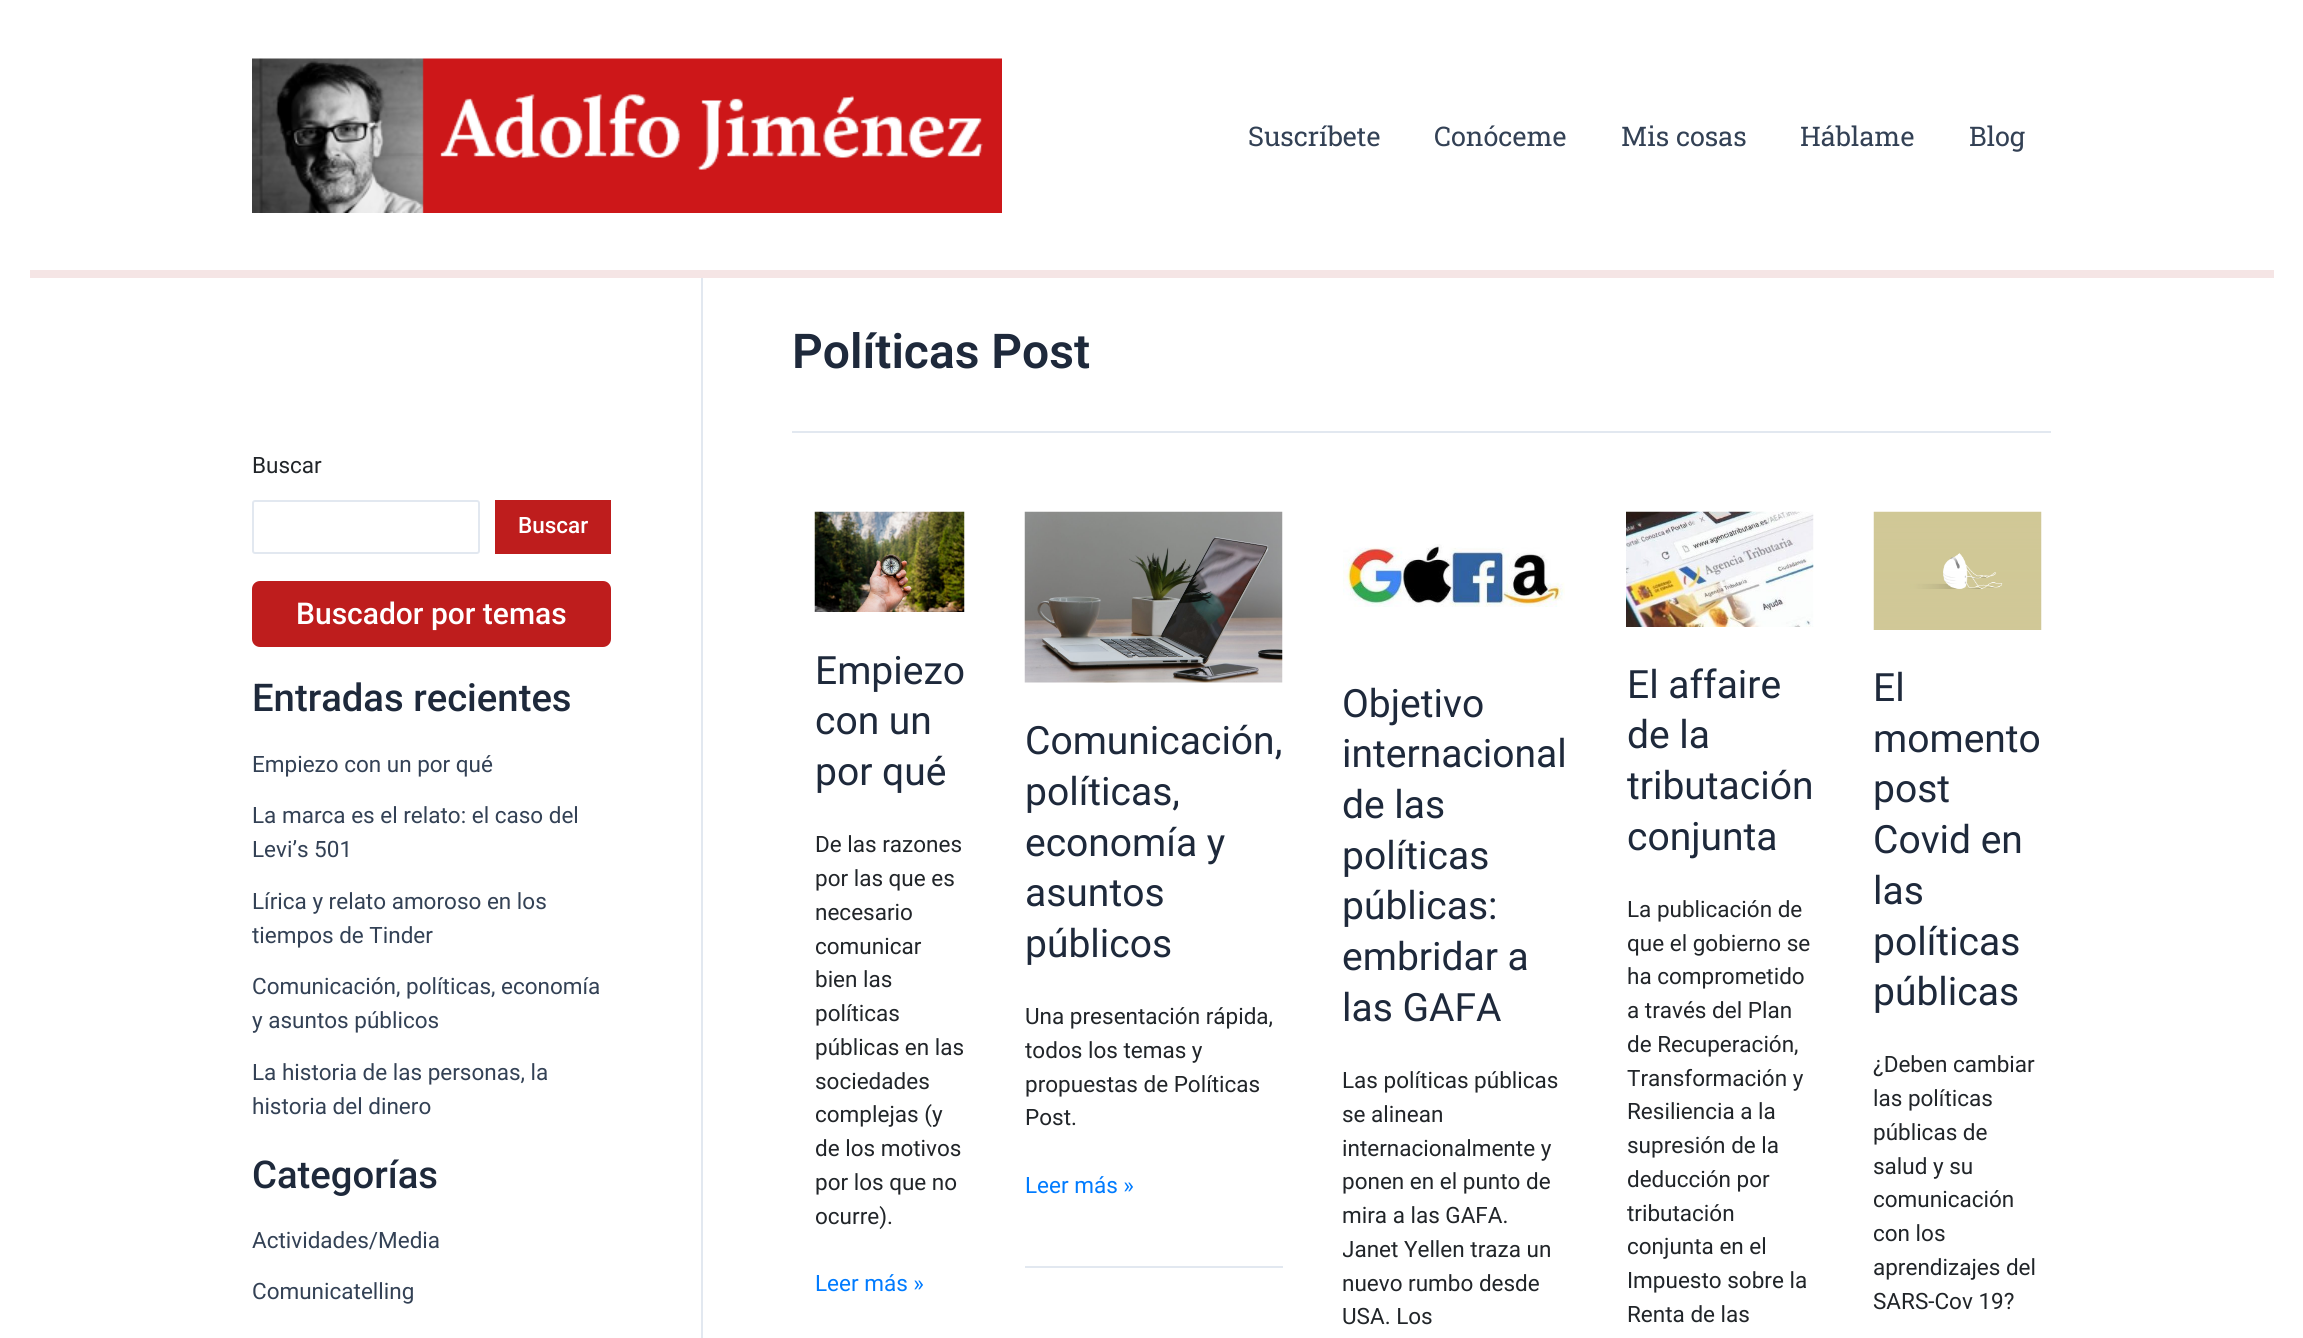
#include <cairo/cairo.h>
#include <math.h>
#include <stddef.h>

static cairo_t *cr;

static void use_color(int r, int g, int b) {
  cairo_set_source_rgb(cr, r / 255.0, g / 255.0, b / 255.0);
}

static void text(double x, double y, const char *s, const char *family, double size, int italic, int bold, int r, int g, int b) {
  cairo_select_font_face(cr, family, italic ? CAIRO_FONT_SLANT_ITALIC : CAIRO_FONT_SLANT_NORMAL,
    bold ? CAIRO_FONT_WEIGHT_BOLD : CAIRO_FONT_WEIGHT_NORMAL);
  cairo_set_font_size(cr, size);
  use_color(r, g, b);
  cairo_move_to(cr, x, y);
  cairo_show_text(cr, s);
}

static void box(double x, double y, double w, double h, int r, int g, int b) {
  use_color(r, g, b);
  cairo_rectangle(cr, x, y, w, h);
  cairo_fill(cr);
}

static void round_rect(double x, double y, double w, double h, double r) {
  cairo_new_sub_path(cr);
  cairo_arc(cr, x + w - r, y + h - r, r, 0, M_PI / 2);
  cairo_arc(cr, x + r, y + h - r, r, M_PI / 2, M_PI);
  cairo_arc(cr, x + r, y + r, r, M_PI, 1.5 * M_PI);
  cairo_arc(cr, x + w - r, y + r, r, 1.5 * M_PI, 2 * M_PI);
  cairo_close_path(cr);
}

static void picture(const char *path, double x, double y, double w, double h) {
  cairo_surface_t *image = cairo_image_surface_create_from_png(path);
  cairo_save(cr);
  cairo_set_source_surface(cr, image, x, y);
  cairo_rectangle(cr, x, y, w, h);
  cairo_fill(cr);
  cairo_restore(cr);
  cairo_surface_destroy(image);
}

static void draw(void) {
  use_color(255, 255, 255);
  cairo_paint(cr);
  box(30, 270, 2244, 8, 245, 229, 229);
  picture("img_01.png", 252, 58, 750, 155);
  round_rect(253, 501, 226, 52, 2);
  use_color(226, 232, 240);
  cairo_stroke(cr);
  box(495, 500, 116, 54, 190, 29, 29);
  round_rect(252, 581, 359, 66, 8);
  cairo_fill(cr);
  box(701, 278, 2, 1060, 226, 232, 240);
  box(792, 431, 1259, 2, 226, 232, 240);
  picture("img_02.png", 814, 511, 151, 101);
  box(1025, 1266, 258, 2, 226, 232, 240);
  picture("img_03.png", 1024, 511, 259, 172);
  picture("img_04.png", 1343, 544, 222, 63);
  picture("img_05.png", 1626, 511, 188, 116);
  picture("img_06.png", 1873, 511, 169, 119);
  text(1248, 146, "Suscríbete", "Roboto Slab", 27, 0, 0, 51, 65, 85);
  text(1434, 146, "Conóceme", "Roboto Slab", 27, 0, 0, 51, 65, 85);
  text(1621, 146, "Mis cosas", "Roboto Slab", 27, 0, 0, 51, 65, 85);
  text(1800, 146, "Háblame", "Roboto Slab", 27, 0, 0, 51, 65, 85);
  text(1969, 146, "Blog", "Roboto Slab", 27, 0, 0, 51, 65, 85);
  text(252, 473, "Buscar", "Roboto", 22.5, 0, 0, 33, 37, 41);
  text(518, 533, "Buscar", "Roboto Medium", 22.5, 0, 0, 255, 255, 255);
  text(296, 624, "Buscador por temas", "Roboto Medium", 30, 0, 0, 255, 255, 255);
  text(252, 711, "Entradas recientes", "Roboto Medium", 38.25, 0, 0, 30, 41, 59);
  text(252, 772, "Empiezo con un por qué", "Roboto", 22.5, 0, 0, 51, 65, 85);
  text(252, 823, "La marca es el relato: el caso del", "Roboto", 22.5, 0, 0, 51, 65, 85);
  text(252, 857, "Levi’s 501", "Roboto", 22.5, 0, 0, 51, 65, 85);
  text(252, 909, "Lírica y relato amoroso en los", "Roboto", 22.5, 0, 0, 51, 65, 85);
  text(252, 943, "tiempos de Tinder", "Roboto", 22.5, 0, 0, 51, 65, 85);
  text(252, 994, "Comunicación, políticas, economía", "Roboto", 22.5, 0, 0, 51, 65, 85);
  text(252, 1028, "y asuntos públicos", "Roboto", 22.5, 0, 0, 51, 65, 85);
  text(252, 1080, "La historia de las personas, la", "Roboto", 22.5, 0, 0, 51, 65, 85);
  text(252, 1114, "historia del dinero", "Roboto", 22.5, 0, 0, 51, 65, 85);
  text(252, 1188, "Categorías", "Roboto Medium", 38.25, 0, 0, 30, 41, 59);
  text(252, 1248, "Actividades/Media", "Roboto", 22.5, 0, 0, 51, 65, 85);
  text(252, 1299, "Comunicatelling", "Roboto", 22.5, 0, 0, 51, 65, 85);
  text(792, 368, "Políticas Post", "Roboto SemiBold", 48, 0, 0, 30, 41, 59);
  text(815, 684, "Empiezo", "Roboto", 39, 0, 0, 30, 41, 59);
  text(815, 734, "con un", "Roboto", 39, 0, 0, 30, 41, 59);
  text(815, 785, "por qué", "Roboto", 39, 0, 0, 30, 41, 59);
  text(815, 852, "De las razones", "Roboto", 22.5, 0, 0, 33, 37, 41);
  text(815, 886, "por las que es", "Roboto", 22.5, 0, 0, 33, 37, 41);
  text(815, 920, "necesario", "Roboto", 22.5, 0, 0, 33, 37, 41);
  text(815, 954, "comunicar", "Roboto", 22.5, 0, 0, 33, 37, 41);
  text(815, 987, "bien las", "Roboto", 22.5, 0, 0, 33, 37, 41);
  text(815, 1021, "políticas", "Roboto", 22.5, 0, 0, 33, 37, 41);
  text(815, 1055, "públicas en las", "Roboto", 22.5, 0, 0, 33, 37, 41);
  text(815, 1089, "sociedades", "Roboto", 22.5, 0, 0, 33, 37, 41);
  text(815, 1122, "complejas (y", "Roboto", 22.5, 0, 0, 33, 37, 41);
  text(815, 1156, "de los motivos", "Roboto", 22.5, 0, 0, 33, 37, 41);
  text(815, 1190, "por los que no", "Roboto", 22.5, 0, 0, 33, 37, 41);
  text(815, 1224, "ocurre).", "Roboto", 22.5, 0, 0, 33, 37, 41);
  text(815, 1291, "Leer más »", "Roboto", 22.5, 0, 0, 0, 123, 255);
  text(1025, 754, "Comunicación,", "Roboto", 39, 0, 0, 30, 41, 59);
  text(1025, 805, "políticas,", "Roboto", 39, 0, 0, 30, 41, 59);
  text(1025, 856, "economía y", "Roboto", 39, 0, 0, 30, 41, 59);
  text(1025, 906, "asuntos", "Roboto", 39, 0, 0, 30, 41, 59);
  text(1025, 957, "públicos", "Roboto", 39, 0, 0, 30, 41, 59);
  text(1025, 1024, "Una presentación rápida,", "Roboto", 22.5, 0, 0, 33, 37, 41);
  text(1025, 1058, "todos los temas y", "Roboto", 22.5, 0, 0, 33, 37, 41);
  text(1025, 1092, "propuestas de Políticas", "Roboto", 22.5, 0, 0, 33, 37, 41);
  text(1025, 1125, "Post.", "Roboto", 22.5, 0, 0, 33, 37, 41);
  text(1025, 1193, "Leer más »", "Roboto", 22.5, 0, 0, 0, 123, 255);
  text(1342, 717, "Objetivo", "Roboto", 39, 0, 0, 30, 41, 59);
  text(1342, 767, "internacional", "Roboto", 39, 0, 0, 30, 41, 59);
  text(1342, 818, "de las", "Roboto", 39, 0, 0, 30, 41, 59);
  text(1342, 869, "políticas", "Roboto", 39, 0, 0, 30, 41, 59);
  text(1342, 919, "públicas:", "Roboto", 39, 0, 0, 30, 41, 59);
  text(1342, 970, "embridar a", "Roboto", 39, 0, 0, 30, 41, 59);
  text(1342, 1021, "las GAFA", "Roboto", 39, 0, 0, 30, 41, 59);
  text(1342, 1088, "Las políticas públicas", "Roboto", 22.5, 0, 0, 33, 37, 41);
  text(1342, 1122, "se alinean", "Roboto", 22.5, 0, 0, 33, 37, 41);
  text(1342, 1156, "internacionalmente y", "Roboto", 22.5, 0, 0, 33, 37, 41);
  text(1342, 1189, "ponen en el punto de", "Roboto", 22.5, 0, 0, 33, 37, 41);
  text(1342, 1223, "mira a las GAFA.", "Roboto", 22.5, 0, 0, 33, 37, 41);
  cairo_save(cr);
  cairo_rectangle(cr, 1343, 512, 223, 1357);
  cairo_clip(cr);
  text(1342, 1257, "Janet Yellen traza un", "Roboto", 22.5, 0, 0, 33, 37, 41);
  cairo_restore(cr);
  text(1342, 1291, "nuevo rumbo desde", "Roboto", 22.5, 0, 0, 33, 37, 41);
  text(1342, 1324, "USA. Los", "Roboto", 22.5, 0, 0, 33, 37, 41);
  text(1627, 698, "El affaire", "Roboto", 39, 0, 0, 30, 41, 59);
  text(1627, 748, "de la", "Roboto", 39, 0, 0, 30, 41, 59);
  text(1627, 799, "tributación", "Roboto", 39, 0, 0, 30, 41, 59);
  text(1627, 850, "conjunta", "Roboto", 39, 0, 0, 30, 41, 59);
  text(1627, 917, "La publicación de", "Roboto", 22.5, 0, 0, 33, 37, 41);
  text(1627, 951, "que el gobierno se", "Roboto", 22.5, 0, 0, 33, 37, 41);
  text(1627, 984, "ha comprometido", "Roboto", 22.5, 0, 0, 33, 37, 41);
  text(1627, 1018, "a través del Plan", "Roboto", 22.5, 0, 0, 33, 37, 41);
  text(1627, 1052, "de Recuperación,", "Roboto", 22.5, 0, 0, 33, 37, 41);
  text(1627, 1086, "Transformación y", "Roboto", 22.5, 0, 0, 33, 37, 41);
  text(1627, 1119, "Resiliencia a la", "Roboto", 22.5, 0, 0, 33, 37, 41);
  text(1627, 1153, "supresión de la", "Roboto", 22.5, 0, 0, 33, 37, 41);
  text(1627, 1187, "deducción por", "Roboto", 22.5, 0, 0, 33, 37, 41);
  text(1627, 1221, "tributación", "Roboto", 22.5, 0, 0, 33, 37, 41);
  text(1627, 1254, "conjunta en el", "Roboto", 22.5, 0, 0, 33, 37, 41);
  text(1627, 1288, "Impuesto sobre la", "Roboto", 22.5, 0, 0, 33, 37, 41);
  text(1627, 1322, "Renta de las", "Roboto", 22.5, 0, 0, 33, 37, 41);
  text(1873, 701, "El", "Roboto", 39, 0, 0, 30, 41, 59);
  text(1873, 752, "momento", "Roboto", 39, 0, 0, 30, 41, 59);
  text(1873, 802, "post", "Roboto", 39, 0, 0, 30, 41, 59);
  text(1873, 853, "Covid en", "Roboto", 39, 0, 0, 30, 41, 59);
  text(1873, 904, "las", "Roboto", 39, 0, 0, 30, 41, 59);
  text(1873, 955, "políticas", "Roboto", 39, 0, 0, 30, 41, 59);
  text(1873, 1005, "públicas", "Roboto", 39, 0, 0, 30, 41, 59);
  text(1873, 1072, "¿Deben cambiar", "Roboto", 22.5, 0, 0, 33, 37, 41);
  text(1873, 1106, "las políticas", "Roboto", 22.5, 0, 0, 33, 37, 41);
  text(1873, 1140, "públicas de", "Roboto", 22.5, 0, 0, 33, 37, 41);
  text(1873, 1174, "salud y su", "Roboto", 22.5, 0, 0, 33, 37, 41);
  text(1873, 1207, "comunicación", "Roboto", 22.5, 0, 0, 33, 37, 41);
  text(1873, 1241, "con los", "Roboto", 22.5, 0, 0, 33, 37, 41);
  text(1873, 1275, "aprendizajes del", "Roboto", 22.5, 0, 0, 33, 37, 41);
  text(1873, 1309, "SARS-Cov 19?", "Roboto", 22.5, 0, 0, 33, 37, 41);
}

int main(void) {
  cairo_surface_t *surface = cairo_image_surface_create(CAIRO_FORMAT_RGB24, 2303, 1338);
  cr = cairo_create(surface);
  cairo_font_options_t *options = cairo_font_options_create();
  cairo_font_options_set_hint_metrics(options, CAIRO_HINT_METRICS_OFF);
  cairo_font_options_set_hint_style(options, CAIRO_HINT_STYLE_NONE);
  cairo_set_font_options(cr, options);
  cairo_set_miter_limit(cr, 4);
  draw();
  cairo_surface_write_to_png(surface, "out.png");
  cairo_font_options_destroy(options);
  cairo_destroy(cr);
  cairo_surface_destroy(surface);
  return 0;
}
